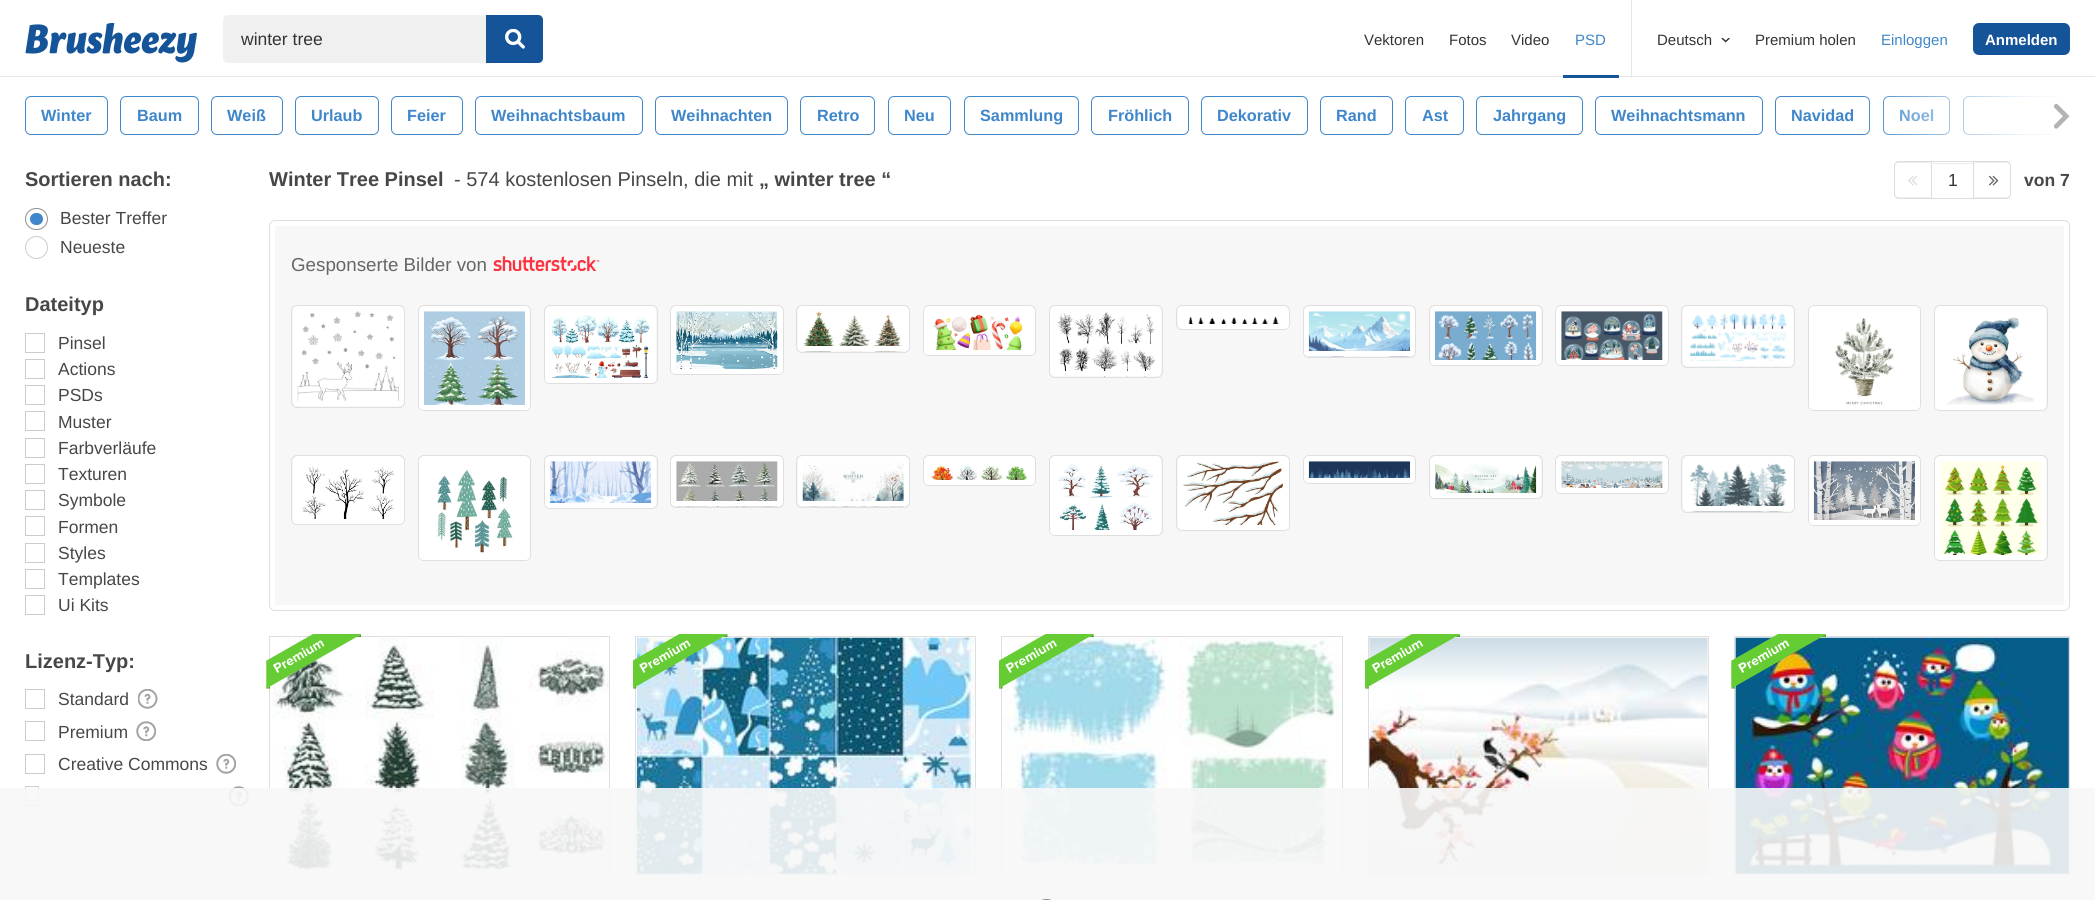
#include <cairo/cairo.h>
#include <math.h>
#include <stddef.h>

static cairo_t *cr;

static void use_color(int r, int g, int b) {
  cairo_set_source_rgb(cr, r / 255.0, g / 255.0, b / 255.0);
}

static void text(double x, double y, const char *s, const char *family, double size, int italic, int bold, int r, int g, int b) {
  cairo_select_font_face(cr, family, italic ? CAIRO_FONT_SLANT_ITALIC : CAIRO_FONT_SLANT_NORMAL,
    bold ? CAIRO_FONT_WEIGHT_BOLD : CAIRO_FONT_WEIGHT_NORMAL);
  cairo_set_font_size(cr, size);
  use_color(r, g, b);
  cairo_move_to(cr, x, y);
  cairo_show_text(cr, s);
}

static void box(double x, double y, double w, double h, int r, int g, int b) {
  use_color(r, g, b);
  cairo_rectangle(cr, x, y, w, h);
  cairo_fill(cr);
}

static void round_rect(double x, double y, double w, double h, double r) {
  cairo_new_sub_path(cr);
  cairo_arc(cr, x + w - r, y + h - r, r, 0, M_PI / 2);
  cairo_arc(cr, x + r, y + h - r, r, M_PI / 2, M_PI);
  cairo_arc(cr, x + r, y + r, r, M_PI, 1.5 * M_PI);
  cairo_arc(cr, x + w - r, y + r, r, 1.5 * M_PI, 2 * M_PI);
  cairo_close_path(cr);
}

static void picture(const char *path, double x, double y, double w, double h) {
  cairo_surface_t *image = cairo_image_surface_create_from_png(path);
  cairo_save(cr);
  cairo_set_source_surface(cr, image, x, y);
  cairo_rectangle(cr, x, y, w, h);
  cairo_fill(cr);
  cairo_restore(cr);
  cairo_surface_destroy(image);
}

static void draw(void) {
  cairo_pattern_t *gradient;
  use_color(255, 255, 255);
  cairo_paint(cr);
  box(0, 76, 2095, 1, 232, 232, 232);
  picture("img_01.png", 25, 23, 172, 40);
  use_color(240, 240, 240);
  round_rect(223, 15, 320, 48, 5);
  cairo_fill(cr);
  use_color(21, 84, 153);
  cairo_new_path(cr);
  cairo_move_to(cr, 486, 15);
  cairo_line_to(cr, 538, 15);
  cairo_curve_to(cr, 541, 15, 543, 17, 543, 20);
  cairo_line_to(cr, 543, 58);
  cairo_curve_to(cr, 543, 61, 541, 63, 538, 63);
  cairo_line_to(cr, 486, 63);
  cairo_close_path(cr);
  cairo_fill(cr);
  picture("img_02.png", 505, 29, 20, 20);
  box(1563, 75, 56, 3, 21, 84, 153);
  box(1631, 0, 1, 78, 232, 232, 232);
  picture("img_03.png", 1721, 38, 9, 5);
  use_color(21, 84, 153);
  round_rect(1973, 23, 97, 32, 6);
  cairo_fill(cr);
  round_rect(25.5, 96.5, 82, 38, 5.5);
  use_color(63, 134, 202);
  cairo_set_line_width(cr, 1);
  cairo_stroke(cr);
  round_rect(120.5, 96.5, 78, 38, 5.5);
  cairo_stroke(cr);
  round_rect(211.5, 96.5, 71, 38, 5.5);
  cairo_stroke(cr);
  round_rect(295.5, 96.5, 83, 38, 5.5);
  cairo_stroke(cr);
  round_rect(391.5, 96.5, 71, 38, 5.5);
  cairo_stroke(cr);
  round_rect(475.5, 96.5, 167, 38, 5.5);
  cairo_stroke(cr);
  round_rect(655.5, 96.5, 132, 38, 5.5);
  cairo_stroke(cr);
  round_rect(800.5, 96.5, 74, 38, 5.5);
  cairo_stroke(cr);
  round_rect(888.5, 96.5, 62, 38, 5.5);
  cairo_stroke(cr);
  round_rect(964.5, 96.5, 114, 38, 5.5);
  cairo_stroke(cr);
  round_rect(1091.5, 96.5, 97, 38, 5.5);
  cairo_stroke(cr);
  round_rect(1201.5, 96.5, 106, 38, 5.5);
  cairo_stroke(cr);
  round_rect(1320.5, 96.5, 72, 38, 5.5);
  cairo_stroke(cr);
  round_rect(1405.5, 96.5, 58, 38, 5.5);
  cairo_stroke(cr);
  round_rect(1476.5, 96.5, 106, 38, 5.5);
  cairo_stroke(cr);
  round_rect(1595.5, 96.5, 167, 38, 5.5);
  cairo_stroke(cr);
  round_rect(1775.5, 96.5, 94, 38, 5.5);
  cairo_stroke(cr);
  round_rect(1883.5, 96.5, 66, 38, 5.5);
  cairo_stroke(cr);
  round_rect(1963.5, 96.5, 96, 38, 5.5);
  cairo_stroke(cr);
  round_rect(25.5, 208.5, 22, 21, 10.5);
  use_color(144, 144, 144);
  cairo_stroke(cr);
  use_color(63, 134, 202);
  round_rect(30, 213, 13, 12, 6);
  cairo_fill(cr);
  cairo_arc(cr, 36.5, 247.5, 11, 0, 2 * M_PI);
  use_color(204, 204, 204);
  cairo_stroke(cr);
  cairo_rectangle(cr, 25.5, 333.5, 19, 19);
  cairo_stroke(cr);
  cairo_rectangle(cr, 25.5, 359.5, 19, 19);
  cairo_stroke(cr);
  cairo_rectangle(cr, 25.5, 385.5, 19, 19);
  cairo_stroke(cr);
  cairo_rectangle(cr, 25.5, 411.5, 19, 19);
  cairo_stroke(cr);
  cairo_rectangle(cr, 25.5, 438.5, 19, 19);
  cairo_stroke(cr);
  cairo_rectangle(cr, 25.5, 464.5, 19, 19);
  cairo_stroke(cr);
  cairo_rectangle(cr, 25.5, 490.5, 19, 19);
  cairo_stroke(cr);
  cairo_rectangle(cr, 25.5, 516.5, 19, 19);
  cairo_stroke(cr);
  cairo_rectangle(cr, 25.5, 543.5, 19, 19);
  cairo_stroke(cr);
  cairo_rectangle(cr, 25.5, 569.5, 19, 19);
  cairo_stroke(cr);
  cairo_rectangle(cr, 25.5, 595.5, 19, 19);
  cairo_stroke(cr);
  cairo_rectangle(cr, 25.5, 689.5, 19, 19);
  cairo_stroke(cr);
  picture("img_05.png", 138, 689, 20, 20);
  cairo_rectangle(cr, 25.5, 721.5, 19, 19);
  cairo_stroke(cr);
  picture("img_06.png", 136, 721, 20, 20);
  cairo_rectangle(cr, 25.5, 754.5, 19, 19);
  cairo_stroke(cr);
  picture("img_07.png", 216, 754, 20, 20);
  cairo_rectangle(cr, 25.5, 786.5, 13, 19);
  cairo_stroke(cr);
  picture("img_08.png", 229, 786, 20, 20);
  use_color(221, 221, 221);
  cairo_set_fill_rule(cr, CAIRO_FILL_RULE_EVEN_ODD);
  cairo_new_path(cr);
  cairo_move_to(cr, 1899, 161);
  cairo_line_to(cr, 1931, 161);
  cairo_line_to(cr, 1931, 199);
  cairo_line_to(cr, 1899, 199);
  cairo_curve_to(cr, 1896, 199, 1894, 196.5, 1894, 194);
  cairo_line_to(cr, 1894, 166);
  cairo_curve_to(cr, 1894, 163.5, 1896, 161, 1899, 161);
  cairo_close_path(cr);
  cairo_move_to(cr, 1899, 162.5);
  cairo_line_to(cr, 1931, 162.5);
  cairo_line_to(cr, 1931, 197.5);
  cairo_line_to(cr, 1899, 197.5);
  cairo_curve_to(cr, 1896.5, 197.5, 1895, 196, 1895, 194);
  cairo_line_to(cr, 1895, 166);
  cairo_curve_to(cr, 1895, 164, 1896.5, 162.5, 1899, 162.5);
  cairo_close_path(cr);
  cairo_fill(cr);
  picture("img_09.png", 1908, 176, 10, 10);
  box(1933, 163, 40, 1, 236, 236, 236);
  cairo_rectangle(cr, 1931.5, 161.5, 42, 37);
  use_color(221, 221, 221);
  cairo_stroke(cr);
  cairo_new_path(cr);
  cairo_move_to(cr, 1974, 161);
  cairo_line_to(cr, 2006, 161);
  cairo_curve_to(cr, 2009, 161, 2011, 163.5, 2011, 166);
  cairo_line_to(cr, 2011, 194);
  cairo_curve_to(cr, 2011, 196.5, 2009, 199, 2006, 199);
  cairo_line_to(cr, 1974, 199);
  cairo_close_path(cr);
  cairo_move_to(cr, 1974, 162.5);
  cairo_line_to(cr, 2006, 162.5);
  cairo_curve_to(cr, 2008.5, 162.5, 2010, 164, 2010, 166);
  cairo_line_to(cr, 2010, 194);
  cairo_curve_to(cr, 2010, 196, 2008.5, 197.5, 2006, 197.5);
  cairo_line_to(cr, 1974, 197.5);
  cairo_close_path(cr);
  cairo_fill(cr);
  picture("img_10.png", 1988, 175, 11, 11);
  round_rect(269.5, 220.5, 1800, 390, 5.5);
  use_color(223, 223, 223);
  cairo_stroke(cr);
  box(275, 226, 1789, 379, 247, 247, 247);
  picture("img_11.png", 493, 256, 107, 15);
  use_color(255, 255, 255);
  round_rect(293, 306, 111, 100, 5);
  cairo_fill(cr);
  round_rect(291.5, 305.5, 113, 102, 5.5);
  use_color(223, 223, 223);
  cairo_stroke(cr);
  picture("img_12.png", 297, 311, 102, 96);
  use_color(255, 255, 255);
  cairo_new_path(cr);
  cairo_move_to(cr, 293, 401);
  cairo_line_to(cr, 404, 401);
  cairo_curve_to(cr, 404, 404, 402, 406, 399, 406);
  cairo_line_to(cr, 298, 406);
  cairo_curve_to(cr, 295, 406, 293, 404, 293, 401);
  cairo_close_path(cr);
  cairo_fill(cr);
  round_rect(418.5, 305.5, 112, 105, 5.5);
  cairo_fill_preserve(cr);
  use_color(223, 223, 223);
  cairo_stroke(cr);
  picture("img_13.png", 423, 311, 102, 99);
  use_color(255, 255, 255);
  cairo_new_path(cr);
  cairo_move_to(cr, 419, 405);
  cairo_line_to(cr, 530, 405);
  cairo_curve_to(cr, 530, 408, 528, 410, 525, 410);
  cairo_line_to(cr, 424, 410);
  cairo_curve_to(cr, 421, 410, 419, 408, 419, 405);
  cairo_close_path(cr);
  cairo_fill(cr);
  round_rect(545, 306, 111, 77, 5);
  cairo_fill(cr);
  round_rect(544.5, 305.5, 113, 78, 5.5);
  use_color(223, 223, 223);
  cairo_stroke(cr);
  picture("img_14.png", 551, 315, 99, 63);
  use_color(255, 255, 255);
  cairo_new_path(cr);
  cairo_move_to(cr, 545, 378);
  cairo_line_to(cr, 656, 378);
  cairo_curve_to(cr, 656, 381, 654, 383, 651, 383);
  cairo_line_to(cr, 550, 383);
  cairo_curve_to(cr, 547, 383, 545, 381, 545, 378);
  cairo_close_path(cr);
  cairo_fill(cr);
  round_rect(670.5, 305.5, 113, 69, 5.5);
  cairo_fill_preserve(cr);
  use_color(223, 223, 223);
  cairo_stroke(cr);
  picture("img_15.png", 676, 311, 102, 58);
  use_color(255, 255, 255);
  cairo_new_path(cr);
  cairo_move_to(cr, 671, 369);
  cairo_line_to(cr, 783, 369);
  cairo_curve_to(cr, 783, 372, 781, 374, 778, 374);
  cairo_line_to(cr, 676, 374);
  cairo_curve_to(cr, 673, 374, 671, 372, 671, 369);
  cairo_close_path(cr);
  cairo_fill(cr);
  round_rect(798, 306, 111, 45, 5);
  cairo_fill(cr);
  round_rect(796.5, 305.5, 113, 47, 5.5);
  use_color(223, 223, 223);
  cairo_stroke(cr);
  picture("img_16.png", 802, 311, 101, 41);
  use_color(255, 255, 255);
  cairo_new_path(cr);
  cairo_move_to(cr, 798, 346);
  cairo_line_to(cr, 909, 346);
  cairo_curve_to(cr, 909, 349, 907, 351, 904, 351);
  cairo_line_to(cr, 803, 351);
  cairo_curve_to(cr, 800, 351, 798, 349, 798, 346);
  cairo_close_path(cr);
  cairo_fill(cr);
  round_rect(923.5, 305.5, 112, 50, 5.5);
  cairo_fill_preserve(cr);
  use_color(223, 223, 223);
  cairo_stroke(cr);
  picture("img_17.png", 934, 314, 89, 36);
  use_color(255, 255, 255);
  cairo_new_path(cr);
  cairo_move_to(cr, 924, 350);
  cairo_line_to(cr, 1035, 350);
  cairo_curve_to(cr, 1035, 353, 1033, 355, 1030, 355);
  cairo_line_to(cr, 929, 355);
  cairo_curve_to(cr, 926, 355, 924, 353, 924, 350);
  cairo_close_path(cr);
  cairo_fill(cr);
  round_rect(1050, 306, 111, 70, 5);
  cairo_fill(cr);
  round_rect(1049.5, 305.5, 113, 72, 5.5);
  use_color(223, 223, 223);
  cairo_stroke(cr);
  picture("img_18.png", 1057, 312, 98, 65);
  use_color(255, 255, 255);
  cairo_new_path(cr);
  cairo_move_to(cr, 1050, 371);
  cairo_line_to(cr, 1161, 371);
  cairo_curve_to(cr, 1161, 374, 1159, 376, 1156, 376);
  cairo_line_to(cr, 1055, 376);
  cairo_curve_to(cr, 1052, 376, 1050, 374, 1050, 371);
  cairo_close_path(cr);
  cairo_fill(cr);
  round_rect(1178, 306, 111, 23, 5);
  cairo_fill(cr);
  round_rect(1176.5, 305.5, 113, 24, 5.5);
  use_color(223, 223, 223);
  cairo_stroke(cr);
  picture("img_19.png", 1187, 316, 92, 8);
  use_color(255, 255, 255);
  cairo_new_path(cr);
  cairo_move_to(cr, 1178, 324);
  cairo_line_to(cr, 1289, 324);
  cairo_curve_to(cr, 1289, 327, 1287, 329, 1284, 329);
  cairo_line_to(cr, 1183, 329);
  cairo_curve_to(cr, 1180, 329, 1178, 327, 1178, 324);
  cairo_close_path(cr);
  cairo_fill(cr);
  round_rect(1304, 306, 111, 50, 5);
  cairo_fill(cr);
  round_rect(1303.5, 305.5, 112, 52, 5.5);
  use_color(223, 223, 223);
  cairo_stroke(cr);
  picture("img_20.png", 1308, 311, 102, 46);
  use_color(255, 255, 255);
  cairo_new_path(cr);
  cairo_move_to(cr, 1304, 351);
  cairo_line_to(cr, 1415, 351);
  cairo_curve_to(cr, 1415, 354, 1413, 356, 1410, 356);
  cairo_line_to(cr, 1309, 356);
  cairo_curve_to(cr, 1306, 356, 1304, 354, 1304, 351);
  cairo_close_path(cr);
  cairo_fill(cr);
  round_rect(1430, 306, 111, 59, 5);
  cairo_fill(cr);
  round_rect(1429.5, 305.5, 113, 60, 5.5);
  use_color(223, 223, 223);
  cairo_stroke(cr);
  picture("img_21.png", 1435, 311, 102, 54);
  use_color(255, 255, 255);
  cairo_new_path(cr);
  cairo_move_to(cr, 1430, 360);
  cairo_line_to(cr, 1541, 360);
  cairo_curve_to(cr, 1541, 363, 1539, 365, 1536, 365);
  cairo_line_to(cr, 1435, 365);
  cairo_curve_to(cr, 1432, 365, 1430, 363, 1430, 360);
  cairo_close_path(cr);
  cairo_fill(cr);
  round_rect(1555.5, 305.5, 113, 60, 5.5);
  cairo_fill_preserve(cr);
  use_color(223, 223, 223);
  cairo_stroke(cr);
  picture("img_22.png", 1561, 311, 102, 49);
  use_color(255, 255, 255);
  cairo_new_path(cr);
  cairo_move_to(cr, 1556, 360);
  cairo_line_to(cr, 1668, 360);
  cairo_curve_to(cr, 1668, 363, 1666, 365, 1663, 365);
  cairo_line_to(cr, 1561, 365);
  cairo_curve_to(cr, 1558, 365, 1556, 363, 1556, 360);
  cairo_close_path(cr);
  cairo_fill(cr);
  round_rect(1683, 306, 111, 60, 5);
  cairo_fill(cr);
  round_rect(1681.5, 305.5, 113, 62, 5.5);
  use_color(223, 223, 223);
  cairo_stroke(cr);
  picture("img_23.png", 1689, 313, 98, 54);
  use_color(255, 255, 255);
  cairo_new_path(cr);
  cairo_move_to(cr, 1683, 361);
  cairo_line_to(cr, 1794, 361);
  cairo_curve_to(cr, 1794, 364, 1792, 366, 1789, 366);
  cairo_line_to(cr, 1688, 366);
  cairo_curve_to(cr, 1685, 366, 1683, 364, 1683, 361);
  cairo_close_path(cr);
  cairo_fill(cr);
  round_rect(1808.5, 305.5, 112, 105, 5.5);
  cairo_fill_preserve(cr);
  use_color(223, 223, 223);
  cairo_stroke(cr);
  picture("img_24.png", 1835, 317, 60, 88);
  use_color(255, 255, 255);
  cairo_new_path(cr);
  cairo_move_to(cr, 1809, 405);
  cairo_line_to(cr, 1920, 405);
  cairo_curve_to(cr, 1920, 408, 1918, 410, 1915, 410);
  cairo_line_to(cr, 1814, 410);
  cairo_curve_to(cr, 1811, 410, 1809, 408, 1809, 405);
  cairo_close_path(cr);
  cairo_fill(cr);
  round_rect(1935, 306, 111, 104, 5);
  cairo_fill(cr);
  round_rect(1934.5, 305.5, 113, 105, 5.5);
  use_color(223, 223, 223);
  cairo_stroke(cr);
  picture("img_25.png", 1947, 317, 87, 88);
  use_color(255, 255, 255);
  cairo_new_path(cr);
  cairo_move_to(cr, 1935, 405);
  cairo_line_to(cr, 2046, 405);
  cairo_curve_to(cr, 2046, 408, 2044, 410, 2041, 410);
  cairo_line_to(cr, 1940, 410);
  cairo_curve_to(cr, 1937, 410, 1935, 408, 1935, 405);
  cairo_close_path(cr);
  cairo_fill(cr);
  round_rect(293, 456, 111, 68, 5);
  cairo_fill(cr);
  round_rect(291.5, 455.5, 113, 69, 5.5);
  use_color(223, 223, 223);
  cairo_stroke(cr);
  picture("img_26.png", 302, 466, 93, 53);
  use_color(255, 255, 255);
  cairo_new_path(cr);
  cairo_move_to(cr, 293, 519);
  cairo_line_to(cr, 404, 519);
  cairo_curve_to(cr, 404, 522, 402, 524, 399, 524);
  cairo_line_to(cr, 298, 524);
  cairo_curve_to(cr, 295, 524, 293, 522, 293, 519);
  cairo_close_path(cr);
  cairo_fill(cr);
  round_rect(418.5, 455.5, 112, 105, 5.5);
  cairo_fill_preserve(cr);
  use_color(223, 223, 223);
  cairo_stroke(cr);
  picture("img_27.png", 436, 470, 77, 84);
  use_color(255, 255, 255);
  cairo_new_path(cr);
  cairo_move_to(cr, 419, 555);
  cairo_line_to(cr, 530, 555);
  cairo_curve_to(cr, 530, 558, 528, 560, 525, 560);
  cairo_line_to(cr, 424, 560);
  cairo_curve_to(cr, 421, 560, 419, 558, 419, 555);
  cairo_close_path(cr);
  cairo_fill(cr);
  round_rect(545, 456, 111, 52, 5);
  cairo_fill(cr);
  round_rect(544.5, 455.5, 113, 53, 5.5);
  use_color(223, 223, 223);
  cairo_stroke(cr);
  picture("img_28.png", 550, 461, 102, 47);
  use_color(255, 255, 255);
  cairo_new_path(cr);
  cairo_move_to(cr, 545, 503);
  cairo_line_to(cr, 656, 503);
  cairo_curve_to(cr, 656, 506, 654, 508, 651, 508);
  cairo_line_to(cr, 550, 508);
  cairo_curve_to(cr, 547, 508, 545, 506, 545, 503);
  cairo_close_path(cr);
  cairo_fill(cr);
  round_rect(671, 456, 112, 50, 5);
  cairo_fill(cr);
  round_rect(670.5, 455.5, 113, 52, 5.5);
  use_color(223, 223, 223);
  cairo_stroke(cr);
  picture("img_29.png", 676, 461, 102, 46);
  use_color(255, 255, 255);
  cairo_new_path(cr);
  cairo_move_to(cr, 671, 501);
  cairo_line_to(cr, 783, 501);
  cairo_curve_to(cr, 783, 504, 781, 506, 778, 506);
  cairo_line_to(cr, 676, 506);
  cairo_curve_to(cr, 673, 506, 671, 504, 671, 501);
  cairo_close_path(cr);
  cairo_fill(cr);
  round_rect(798, 456, 111, 50, 5);
  cairo_fill(cr);
  round_rect(796.5, 455.5, 113, 52, 5.5);
  use_color(223, 223, 223);
  cairo_stroke(cr);
  picture("img_30.png", 802, 463, 102, 44);
  use_color(255, 255, 255);
  cairo_new_path(cr);
  cairo_move_to(cr, 798, 501);
  cairo_line_to(cr, 909, 501);
  cairo_curve_to(cr, 909, 504, 907, 506, 904, 506);
  cairo_line_to(cr, 803, 506);
  cairo_curve_to(cr, 800, 506, 798, 504, 798, 501);
  cairo_close_path(cr);
  cairo_fill(cr);
  round_rect(923.5, 455.5, 112, 30, 5.5);
  cairo_fill_preserve(cr);
  use_color(223, 223, 223);
  cairo_stroke(cr);
  picture("img_31.png", 931, 466, 97, 14);
  use_color(255, 255, 255);
  cairo_new_path(cr);
  cairo_move_to(cr, 924, 480);
  cairo_line_to(cr, 1035, 480);
  cairo_curve_to(cr, 1035, 483, 1033, 485, 1030, 485);
  cairo_line_to(cr, 929, 485);
  cairo_curve_to(cr, 926, 485, 924, 483, 924, 480);
  cairo_close_path(cr);
  cairo_fill(cr);
  round_rect(1050, 456, 111, 79, 5);
  cairo_fill(cr);
  round_rect(1049.5, 455.5, 113, 80, 5.5);
  use_color(223, 223, 223);
  cairo_stroke(cr);
  picture("img_32.png", 1058, 464, 96, 66);
  use_color(255, 255, 255);
  cairo_new_path(cr);
  cairo_move_to(cr, 1050, 530);
  cairo_line_to(cr, 1161, 530);
  cairo_curve_to(cr, 1161, 533, 1159, 535, 1156, 535);
  cairo_line_to(cr, 1055, 535);
  cairo_curve_to(cr, 1052, 535, 1050, 533, 1050, 530);
  cairo_close_path(cr);
  cairo_fill(cr);
  round_rect(1178, 456, 111, 74, 5);
  cairo_fill(cr);
  round_rect(1176.5, 455.5, 113, 75, 5.5);
  use_color(223, 223, 223);
  cairo_stroke(cr);
  picture("img_33.png", 1183, 461, 100, 64);
  use_color(255, 255, 255);
  cairo_new_path(cr);
  cairo_move_to(cr, 1178, 525);
  cairo_line_to(cr, 1289, 525);
  cairo_curve_to(cr, 1289, 528, 1287, 530, 1284, 530);
  cairo_line_to(cr, 1183, 530);
  cairo_curve_to(cr, 1180, 530, 1178, 528, 1178, 525);
  cairo_close_path(cr);
  cairo_fill(cr);
  round_rect(1303.5, 455.5, 112, 28, 5.5);
  cairo_fill_preserve(cr);
  use_color(223, 223, 223);
  cairo_stroke(cr);
  picture("img_34.png", 1308, 461, 102, 22);
  use_color(255, 255, 255);
  cairo_new_path(cr);
  cairo_move_to(cr, 1304, 478);
  cairo_line_to(cr, 1415, 478);
  cairo_curve_to(cr, 1415, 481, 1413, 483, 1410, 483);
  cairo_line_to(cr, 1309, 483);
  cairo_curve_to(cr, 1306, 483, 1304, 481, 1304, 478);
  cairo_close_path(cr);
  cairo_fill(cr);
  round_rect(1430, 456, 111, 42, 5);
  cairo_fill(cr);
  round_rect(1429.5, 455.5, 113, 43, 5.5);
  use_color(223, 223, 223);
  cairo_stroke(cr);
  picture("img_35.png", 1435, 463, 102, 35);
  use_color(255, 255, 255);
  cairo_new_path(cr);
  cairo_move_to(cr, 1430, 493);
  cairo_line_to(cr, 1541, 493);
  cairo_curve_to(cr, 1541, 496, 1539, 498, 1536, 498);
  cairo_line_to(cr, 1435, 498);
  cairo_curve_to(cr, 1432, 498, 1430, 496, 1430, 493);
  cairo_close_path(cr);
  cairo_fill(cr);
  round_rect(1555.5, 455.5, 113, 38, 5.5);
  cairo_fill_preserve(cr);
  use_color(223, 223, 223);
  cairo_stroke(cr);
  picture("img_36.png", 1561, 461, 102, 27);
  use_color(255, 255, 255);
  cairo_new_path(cr);
  cairo_move_to(cr, 1556, 488);
  cairo_line_to(cr, 1668, 488);
  cairo_curve_to(cr, 1668, 491, 1666, 493, 1663, 493);
  cairo_line_to(cr, 1561, 493);
  cairo_curve_to(cr, 1558, 493, 1556, 491, 1556, 488);
  cairo_close_path(cr);
  cairo_fill(cr);
  round_rect(1683, 456, 111, 55, 5);
  cairo_fill(cr);
  round_rect(1681.5, 455.5, 113, 57, 5.5);
  use_color(223, 223, 223);
  cairo_stroke(cr);
  picture("img_37.png", 1690, 463, 97, 49);
  use_color(255, 255, 255);
  cairo_new_path(cr);
  cairo_move_to(cr, 1683, 506);
  cairo_line_to(cr, 1794, 506);
  cairo_curve_to(cr, 1794, 509, 1792, 511, 1789, 511);
  cairo_line_to(cr, 1688, 511);
  cairo_curve_to(cr, 1685, 511, 1683, 509, 1683, 506);
  cairo_close_path(cr);
  cairo_fill(cr);
  round_rect(1808.5, 455.5, 112, 70, 5.5);
  cairo_fill_preserve(cr);
  use_color(223, 223, 223);
  cairo_stroke(cr);
  picture("img_38.png", 1813, 461, 102, 64);
  use_color(255, 255, 255);
  cairo_new_path(cr);
  cairo_move_to(cr, 1809, 520);
  cairo_line_to(cr, 1920, 520);
  cairo_curve_to(cr, 1920, 523, 1918, 525, 1915, 525);
  cairo_line_to(cr, 1814, 525);
  cairo_curve_to(cr, 1811, 525, 1809, 523, 1809, 520);
  cairo_close_path(cr);
  cairo_fill(cr);
  round_rect(1935, 456, 111, 104, 5);
  cairo_fill(cr);
  round_rect(1934.5, 455.5, 113, 105, 5.5);
  use_color(223, 223, 223);
  cairo_stroke(cr);
  picture("img_39.png", 1940, 461, 101, 94);
  use_color(255, 255, 255);
  cairo_new_path(cr);
  cairo_move_to(cr, 1935, 555);
  cairo_line_to(cr, 2046, 555);
  cairo_curve_to(cr, 2046, 558, 2044, 560, 2041, 560);
  cairo_line_to(cr, 1940, 560);
  cairo_curve_to(cr, 1937, 560, 1935, 558, 1935, 555);
  cairo_close_path(cr);
  cairo_fill(cr);
  cairo_rectangle(cr, 269.5, 636.5, 340, 238);
  use_color(223, 223, 223);
  cairo_stroke(cr);
  picture("img_41.png", 271, 638, 338, 236);
  picture("img_40.png", 266, 634, 95, 55);
  cairo_rectangle(cr, 635.5, 636.5, 340, 238);
  cairo_stroke(cr);
  picture("img_43.png", 636, 637, 339, 237);
  picture("img_42.png", 633, 634, 95, 55);
  cairo_rectangle(cr, 1001.5, 636.5, 341, 238);
  cairo_stroke(cr);
  picture("img_45.png", 1003, 637, 338, 236);
  picture("img_44.png", 999, 634, 95, 55);
  cairo_rectangle(cr, 1368.5, 636.5, 340, 238);
  cairo_stroke(cr);
  picture("img_47.png", 1369, 637, 339, 237);
  picture("img_46.png", 1365, 634, 95, 55);
  cairo_rectangle(cr, 1734.5, 636.5, 335, 238);
  cairo_stroke(cr);
  picture("img_49.png", 1735, 637, 334, 237);
  picture("img_48.png", 1731, 634, 95, 55);
  cairo_set_source_rgba(cr, 0.969, 0.969, 0.969, 0.9);
  cairo_rectangle(cr, 0, 788, 2095, 112);
  cairo_fill(cr);
  round_rect(1033.5, 899.5, 26, 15, 13);
  use_color(136, 136, 136);
  cairo_stroke(cr);
  text(241, 45, "winter tree", "Liberation Sans", 17.5, 0, 0, 51, 51, 51);
  text(1364, 45, "Vektoren", "Liberation Sans", 15, 0, 0, 51, 51, 51);
  text(1449, 45, "Fotos", "Liberation Sans", 15, 0, 0, 51, 51, 51);
  text(1511, 45, "Video", "Liberation Sans", 15, 0, 0, 51, 51, 51);
  text(1575, 45, "PSD", "Liberation Sans", 15, 0, 0, 63, 134, 202);
  text(1657, 45, "Deutsch", "Liberation Sans", 15, 0, 0, 51, 51, 51);
  text(1755, 45, "Premium holen", "Liberation Sans", 15, 0, 0, 51, 51, 51);
  text(1881, 45, "Einloggen", "Liberation Sans", 15, 0, 0, 63, 134, 202);
  text(1985, 45, "Anmelden", "Liberation Sans", 15, 0, 1, 255, 255, 255);
  text(41, 121, "Winter", "Liberation Sans", 16.25, 0, 1, 63, 134, 202);
  text(137, 121, "Baum", "Liberation Sans", 16.25, 0, 1, 63, 134, 202);
  text(227, 121, "Weiß", "Liberation Sans", 16.25, 0, 1, 63, 134, 202);
  text(311, 121, "Urlaub", "Liberation Sans", 16.25, 0, 1, 63, 134, 202);
  text(407, 121, "Feier", "Liberation Sans", 16.25, 0, 1, 63, 134, 202);
  text(491, 121, "Weihnachtsbaum", "Liberation Sans", 16.25, 0, 1, 63, 134, 202);
  text(671, 121, "Weihnachten", "Liberation Sans", 16.25, 0, 1, 63, 134, 202);
  text(817, 121, "Retro", "Liberation Sans", 16.25, 0, 1, 63, 134, 202);
  text(904, 121, "Neu", "Liberation Sans", 16.25, 0, 1, 63, 134, 202);
  text(980, 121, "Sammlung", "Liberation Sans", 16.25, 0, 1, 63, 134, 202);
  text(1108, 121, "Fröhlich", "Liberation Sans", 16.25, 0, 1, 63, 134, 202);
  text(1217, 121, "Dekorativ", "Liberation Sans", 16.25, 0, 1, 63, 134, 202);
  text(1336, 121, "Rand", "Liberation Sans", 16.25, 0, 1, 63, 134, 202);
  text(1422, 121, "Ast", "Liberation Sans", 16.25, 0, 1, 63, 134, 202);
  text(1493, 121, "Jahrgang", "Liberation Sans", 16.25, 0, 1, 63, 134, 202);
  text(1611, 121, "Weihnachtsmann", "Liberation Sans", 16.25, 0, 1, 63, 134, 202);
  text(1791, 121, "Navidad", "Liberation Sans", 16.25, 0, 1, 63, 134, 202);
  text(1899, 121, "Noel", "Liberation Sans", 16.25, 0, 1, 63, 134, 202);
  gradient = cairo_pattern_create_linear(1858, 116, 2070, 116);
  cairo_pattern_add_color_stop_rgba(gradient, 0, 1, 1, 1, 0);
  cairo_pattern_add_color_stop_rgba(gradient, 0.75, 1, 1, 1, 0.9);
  cairo_pattern_add_color_stop_rgba(gradient, 1, 1, 1, 1, 1);
  cairo_set_source(cr, gradient);
  cairo_pattern_destroy(gradient);
  cairo_rectangle(cr, 1862, 96, 198, 39);
  cairo_fill(cr);
  picture("img_04.png", 2054, 104, 16, 25);
  text(25, 186, "Sortieren nach:", "Liberation Sans", 20, 0, 1, 71, 71, 71);
  text(60, 224, "Bester Treffer", "Liberation Sans", 17.5, 0, 0, 71, 71, 71);
  text(60, 253, "Neueste", "Liberation Sans", 17.5, 0, 0, 71, 71, 71);
  text(25, 311, "Dateityp", "Liberation Sans", 20, 0, 1, 71, 71, 71);
  text(58, 349, "Pinsel", "Liberation Sans", 17.5, 0, 0, 71, 71, 71);
  text(58, 375, "Actions", "Liberation Sans", 17.5, 0, 0, 71, 71, 71);
  text(58, 401, "PSDs", "Liberation Sans", 17.5, 0, 0, 71, 71, 71);
  text(58, 428, "Muster", "Liberation Sans", 17.5, 0, 0, 71, 71, 71);
  text(58, 454, "Farbverläufe", "Liberation Sans", 17.5, 0, 0, 71, 71, 71);
  text(58, 480, "Texturen", "Liberation Sans", 17.5, 0, 0, 71, 71, 71);
  text(58, 506, "Symbole", "Liberation Sans", 17.5, 0, 0, 71, 71, 71);
  text(58, 533, "Formen", "Liberation Sans", 17.5, 0, 0, 71, 71, 71);
  text(58, 559, "Styles", "Liberation Sans", 17.5, 0, 0, 71, 71, 71);
  text(58, 585, "Templates", "Liberation Sans", 17.5, 0, 0, 71, 71, 71);
  text(58, 611, "Ui Kits", "Liberation Sans", 17.5, 0, 0, 71, 71, 71);
  text(25, 668, "Lizenz-Typ:", "Liberation Sans", 20, 0, 1, 71, 71, 71);
  text(58, 705, "Standard", "Liberation Sans", 17.5, 0, 0, 71, 71, 71);
  text(58, 738, "Premium", "Liberation Sans", 17.5, 0, 0, 71, 71, 71);
  text(58, 770, "Creative Commons", "Liberation Sans", 17.5, 0, 0, 71, 71, 71);
  text(269, 186, "Winter Tree Pinsel", "Liberation Sans", 20, 0, 1, 71, 71, 71);
  text(454, 186, "- 574 kostenlosen Pinseln, die mit", "Liberation Sans", 20, 0, 0, 71, 71, 71);
  text(759, 186, "„ winter tree “", "Liberation Sans", 20, 0, 1, 71, 71, 71);
  text(1948, 186, "1", "Liberation Sans", 17.5, 0, 0, 51, 51, 51);
  text(2024, 186, "von 7", "Liberation Sans", 17.5, 0, 1, 71, 71, 71);
  text(291, 271, "Gesponserte Bilder von", "Liberation Sans", 18.75, 0, 0, 102, 102, 102);
}

int main(void) {
  cairo_surface_t *surface = cairo_image_surface_create(CAIRO_FORMAT_RGB24, 2095, 900);
  cr = cairo_create(surface);
  cairo_font_options_t *options = cairo_font_options_create();
  cairo_font_options_set_hint_metrics(options, CAIRO_HINT_METRICS_OFF);
  cairo_font_options_set_hint_style(options, CAIRO_HINT_STYLE_NONE);
  cairo_set_font_options(cr, options);
  cairo_set_miter_limit(cr, 4);
  draw();
  cairo_surface_write_to_png(surface, "out.png");
  cairo_font_options_destroy(options);
  cairo_destroy(cr);
  cairo_surface_destroy(surface);
  return 0;
}
